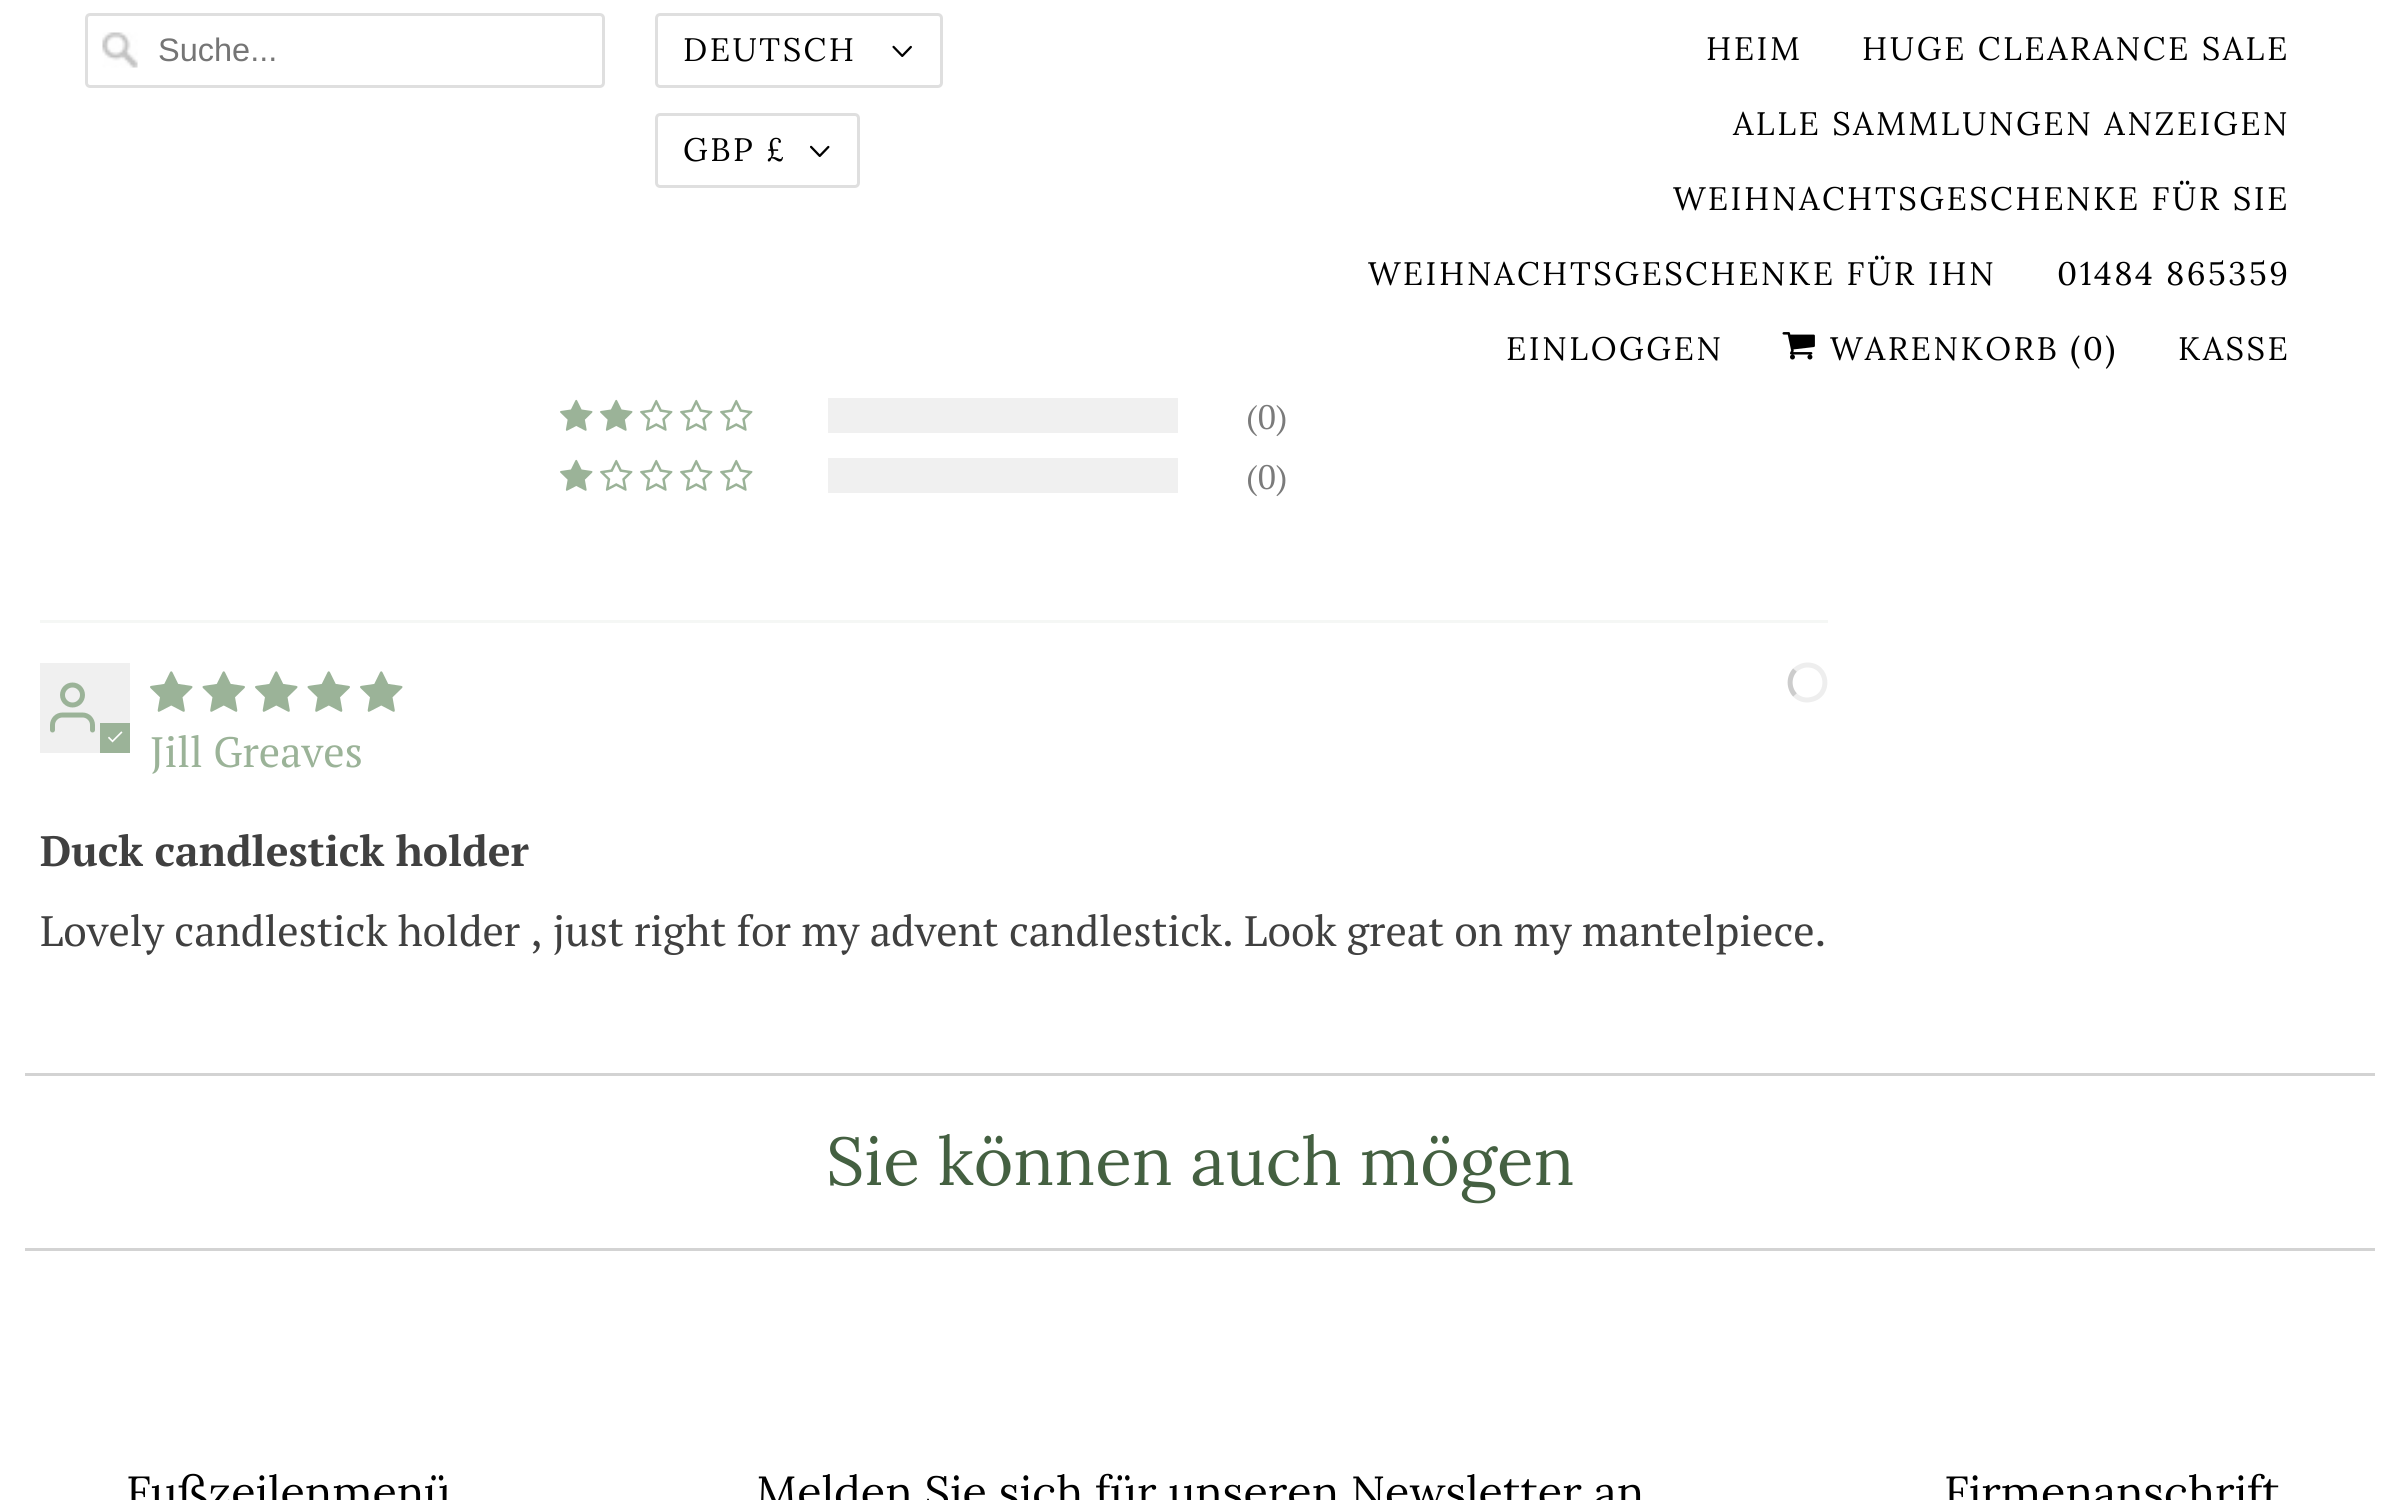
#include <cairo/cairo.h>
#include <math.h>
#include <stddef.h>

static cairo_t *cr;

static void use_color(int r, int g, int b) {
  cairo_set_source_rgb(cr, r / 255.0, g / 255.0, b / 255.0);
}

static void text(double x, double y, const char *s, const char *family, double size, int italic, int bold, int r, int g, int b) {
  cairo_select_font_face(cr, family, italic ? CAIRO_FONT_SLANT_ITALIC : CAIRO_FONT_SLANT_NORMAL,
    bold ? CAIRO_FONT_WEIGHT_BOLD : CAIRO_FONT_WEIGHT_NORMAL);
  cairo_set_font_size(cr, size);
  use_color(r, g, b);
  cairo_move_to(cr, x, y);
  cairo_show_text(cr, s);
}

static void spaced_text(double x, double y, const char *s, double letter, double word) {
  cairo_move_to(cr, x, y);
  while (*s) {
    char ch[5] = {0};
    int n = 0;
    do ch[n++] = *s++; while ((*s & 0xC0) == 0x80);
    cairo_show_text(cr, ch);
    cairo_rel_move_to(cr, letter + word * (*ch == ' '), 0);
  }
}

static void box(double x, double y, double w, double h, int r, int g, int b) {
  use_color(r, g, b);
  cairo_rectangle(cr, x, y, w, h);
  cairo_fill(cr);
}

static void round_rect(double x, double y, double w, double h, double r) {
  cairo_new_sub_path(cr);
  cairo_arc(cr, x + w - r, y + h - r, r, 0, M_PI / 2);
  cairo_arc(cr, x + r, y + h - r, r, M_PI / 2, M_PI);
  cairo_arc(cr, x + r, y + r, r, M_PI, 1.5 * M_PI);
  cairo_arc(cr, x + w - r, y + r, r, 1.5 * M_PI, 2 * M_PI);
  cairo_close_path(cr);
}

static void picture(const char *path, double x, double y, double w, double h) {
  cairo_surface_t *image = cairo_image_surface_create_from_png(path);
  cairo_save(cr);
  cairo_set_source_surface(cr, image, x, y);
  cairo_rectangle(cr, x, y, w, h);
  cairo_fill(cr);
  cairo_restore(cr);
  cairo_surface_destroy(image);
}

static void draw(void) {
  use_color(255, 255, 255);
  cairo_paint(cr);
  picture("img_01.png", 102, 32, 36, 36);
  round_rect(86.5, 14.5, 517, 72, 3.5);
  use_color(223, 223, 223);
  cairo_set_line_width(cr, 3);
  cairo_stroke(cr);
  round_rect(656.5, 14.5, 285, 72, 3.5);
  cairo_stroke(cr);
  picture("img_02.png", 892, 45, 20, 12);
  round_rect(656.5, 114.5, 202, 72, 3.5);
  cairo_stroke(cr);
  picture("img_03.png", 810, 145, 20, 12);
  picture("img_04.png", 1782, 332, 33, 28);
  picture("img_05.png", 560, 399, 33, 32);
  picture("img_05.png", 600, 399, 33, 32);
  picture("img_06.png", 640, 399, 33, 32);
  picture("img_06.png", 680, 399, 33, 32);
  picture("img_06.png", 720, 399, 33, 32);
  box(828, 398, 350, 35, 240, 240, 240);
  picture("img_05.png", 560, 459, 33, 32);
  picture("img_06.png", 600, 459, 33, 32);
  picture("img_06.png", 640, 459, 33, 32);
  picture("img_06.png", 680, 459, 33, 32);
  picture("img_06.png", 720, 459, 33, 32);
  box(828, 458, 350, 35, 240, 240, 240);
  box(40, 620, 1788, 3, 245, 247, 245);
  box(40, 663, 90, 90, 240, 240, 240);
  picture("img_07.png", 50, 682, 45, 51);
  box(100, 723, 30, 30, 155, 179, 152);
  picture("img_08.png", 108, 731, 15, 12);
  picture("img_09.png", 150, 671, 43, 41);
  picture("img_10.png", 202, 671, 43, 41);
  picture("img_09.png", 255, 671, 43, 41);
  picture("img_10.png", 307, 671, 43, 41);
  picture("img_09.png", 360, 671, 43, 41);
  cairo_new_path(cr);
  cairo_move_to(cr, 1795, 670);
  cairo_curve_to(cr, 1798.5, 667, 1803, 665, 1807.5, 665);
  cairo_curve_to(cr, 1828.5, 665, 1831.5, 695.5, 1811, 699.5);
  cairo_curve_to(cr, 1805, 701, 1799, 699, 1795, 695);
  use_color(238, 238, 238);
  cairo_set_line_width(cr, 5);
  cairo_stroke(cr);
  cairo_new_path(cr);
  cairo_move_to(cr, 1795, 695);
  cairo_curve_to(cr, 1788.5, 688, 1788.5, 677, 1795, 670);
  use_color(204, 204, 204);
  cairo_stroke(cr);
  box(25, 1073, 2350, 3, 211, 211, 211);
  box(25, 1248, 2350, 3, 211, 211, 211);
  text(158, 61, "Suche...", "Liberation Sans", 32.5, 0, 0, 117, 117, 117);
  cairo_select_font_face(cr, "Lora", CAIRO_FONT_SLANT_NORMAL, CAIRO_FONT_WEIGHT_NORMAL);
  use_color(0, 0, 0);
  spaced_text(683, 61, "DEUTSCH", 2.5, 0);
  spaced_text(683, 161, "GBP £", 2.5, 0);
  spaced_text(1706, 60, "HEIM", 2.5, 0);
  spaced_text(1862, 60, "HUGE CLEARANCE SALE", 2.5, 0);
  spaced_text(1733, 135, "ALLE SAMMLUNGEN ANZEIGEN", 2.5, 0);
  spaced_text(1673, 210, "WEIHNACHTSGESCHENKE FÜR SIE", 2.5, 0);
  spaced_text(1368, 285, "WEIHNACHTSGESCHENKE FÜR IHN", 2.5, 0);
  spaced_text(2057, 285, "01484 865359", 2.5, 0);
  spaced_text(1506, 360, "EINLOGGEN", 2.5, 0);
  spaced_text(1830, 360, "WARENKORB (0)", 2.5, 0);
  spaced_text(2178, 360, "KASSE", 2.5, 0);
  text(1246, 429, "(0)", "PT Serif", 34, 0, 0, 123, 123, 123);
  text(1246, 489, "(0)", "PT Serif", 34, 0, 0, 123, 123, 123);
  text(150, 767, "Jill Greaves", "PT Serif", 42.5, 0, 0, 155, 179, 152);
  text(40, 866, "Duck candlestick holder", "PT Serif", 42.5, 0, 1, 64, 64, 64);
  text(40, 946, "Lovely candlestick holder , just right for my advent candlestick. Look great on my mantelpiece.", "PT Serif", 42.5, 0, 0, 64, 64, 64);
  text(826, 1185, "Sie können auch mögen", "Lora", 67.5, 0, 0, 68, 96, 65);
  text(126, 1508, "Fußzeilenmenü", "Lora", 45, 0, 0, 0, 0, 0);
  text(756, 1508, "Melden Sie sich für unseren Newsletter an", "Lora", 45, 0, 0, 0, 0, 0);
  text(1944, 1508, "Firmenanschrift", "Lora", 45, 0, 0, 0, 0, 0);
}

int main(void) {
  cairo_surface_t *surface = cairo_image_surface_create(CAIRO_FORMAT_RGB24, 2400, 1500);
  cr = cairo_create(surface);
  cairo_font_options_t *options = cairo_font_options_create();
  cairo_font_options_set_hint_metrics(options, CAIRO_HINT_METRICS_OFF);
  cairo_font_options_set_hint_style(options, CAIRO_HINT_STYLE_NONE);
  cairo_set_font_options(cr, options);
  cairo_set_miter_limit(cr, 4);
  draw();
  cairo_surface_write_to_png(surface, "out.png");
  cairo_font_options_destroy(options);
  cairo_destroy(cr);
  cairo_surface_destroy(surface);
  return 0;
}
